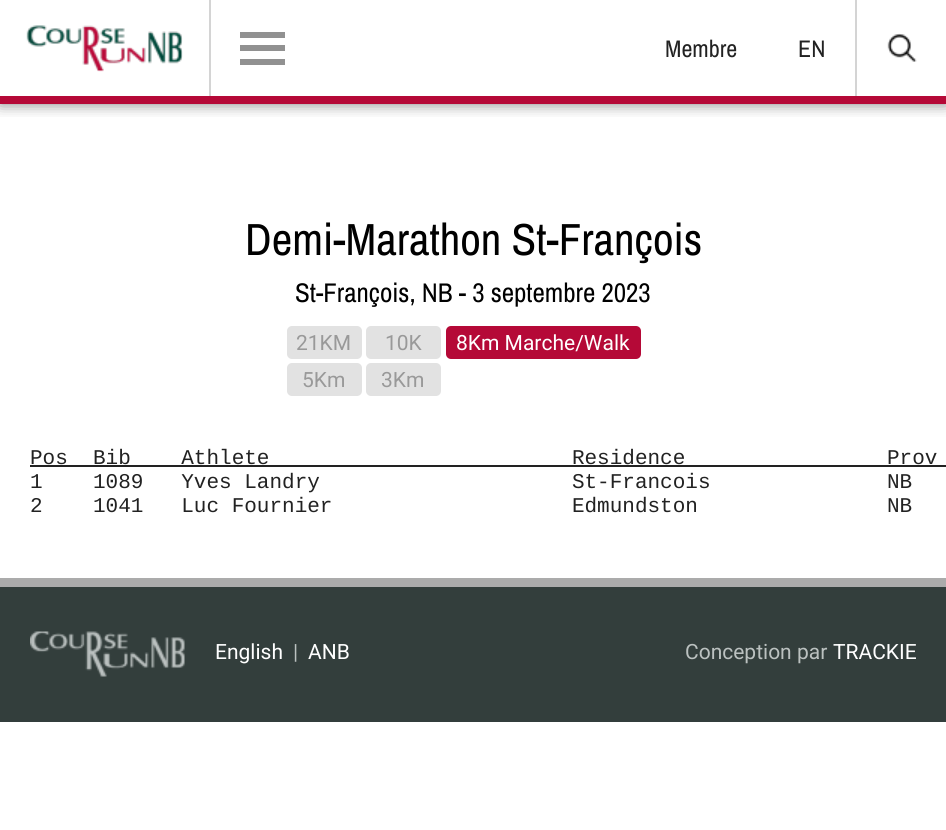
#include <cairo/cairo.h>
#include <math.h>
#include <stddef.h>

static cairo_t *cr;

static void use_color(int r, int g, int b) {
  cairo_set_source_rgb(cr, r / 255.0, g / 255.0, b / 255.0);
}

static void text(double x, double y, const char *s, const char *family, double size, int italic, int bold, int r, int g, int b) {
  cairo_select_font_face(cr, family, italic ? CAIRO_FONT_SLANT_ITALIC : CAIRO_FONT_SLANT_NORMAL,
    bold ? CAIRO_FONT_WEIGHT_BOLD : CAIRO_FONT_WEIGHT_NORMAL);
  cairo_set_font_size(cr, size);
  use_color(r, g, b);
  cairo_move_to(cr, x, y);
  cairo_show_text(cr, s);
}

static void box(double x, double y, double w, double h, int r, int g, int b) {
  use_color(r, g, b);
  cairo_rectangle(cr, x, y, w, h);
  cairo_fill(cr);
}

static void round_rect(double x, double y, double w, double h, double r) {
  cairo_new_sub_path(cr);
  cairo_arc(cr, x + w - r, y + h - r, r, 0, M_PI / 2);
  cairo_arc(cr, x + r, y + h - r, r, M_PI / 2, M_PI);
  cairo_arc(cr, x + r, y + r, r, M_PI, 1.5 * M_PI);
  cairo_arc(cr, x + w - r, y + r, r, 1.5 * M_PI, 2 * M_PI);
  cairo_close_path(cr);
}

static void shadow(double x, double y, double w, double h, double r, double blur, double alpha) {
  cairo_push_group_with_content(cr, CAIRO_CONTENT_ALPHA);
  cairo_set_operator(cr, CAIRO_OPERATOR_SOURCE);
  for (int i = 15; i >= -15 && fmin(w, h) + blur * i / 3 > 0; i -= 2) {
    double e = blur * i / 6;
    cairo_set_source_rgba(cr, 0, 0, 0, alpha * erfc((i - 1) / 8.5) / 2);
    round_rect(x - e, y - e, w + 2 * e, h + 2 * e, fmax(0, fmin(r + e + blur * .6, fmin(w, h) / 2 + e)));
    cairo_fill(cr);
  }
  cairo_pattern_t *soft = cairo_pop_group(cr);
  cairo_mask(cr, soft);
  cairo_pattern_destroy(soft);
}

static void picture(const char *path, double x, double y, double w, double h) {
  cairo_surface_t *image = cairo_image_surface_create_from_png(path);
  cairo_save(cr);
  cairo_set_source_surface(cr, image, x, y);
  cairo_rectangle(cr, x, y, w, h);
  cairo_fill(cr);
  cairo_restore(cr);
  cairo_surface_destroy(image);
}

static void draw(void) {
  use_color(255, 255, 255);
  cairo_paint(cr);
  cairo_save(cr);
  cairo_rectangle(cr, 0, 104, 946, 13);
  cairo_clip(cr);
  use_color(0, 0, 0);
  shadow(0, 0, 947, 104, 0, 7.5, 0.5);
  cairo_restore(cr);
  picture("img_01.png", 26, 25, 157, 47);
  box(209, 0, 2, 96, 212, 212, 212);
  box(240, 32, 45, 6, 145, 145, 145);
  box(240, 45, 45, 6, 145, 145, 145);
  box(240, 59, 45, 6, 145, 145, 145);
  box(855, 0, 2, 96, 212, 212, 212);
  picture("img_02.png", 887, 33, 30, 29);
  box(0, 96, 946, 8, 181, 9, 55);
  use_color(226, 226, 226);
  round_rect(287, 326, 75, 33, 5);
  cairo_fill(cr);
  round_rect(366, 326, 75, 33, 5);
  cairo_fill(cr);
  use_color(181, 9, 55);
  round_rect(446, 326, 195, 33, 5);
  cairo_fill(cr);
  use_color(226, 226, 226);
  round_rect(287, 363, 75, 33, 5);
  cairo_fill(cr);
  round_rect(366, 363, 75, 33, 5);
  cairo_fill(cr);
  box(30, 465, 916, 2, 34, 34, 34);
  box(0, 587, 946, 135, 51, 62, 60);
  box(0, 578, 946, 9, 171, 171, 171);
  picture("img_03.png", 30, 631, 155, 46);
  text(665, 57, "Membre", "Archivo Narrow", 24, 0, 0, 34, 34, 34);
  text(798, 57, "EN", "Archivo Narrow", 24, 0, 0, 34, 34, 34);
  text(245, 255, "Demi-Marathon St-François", "Archivo Narrow", 45, 0, 0, 0, 0, 0);
  text(295, 302, "St-François, NB - 3 septembre 2023", "Archivo Narrow", 27, 0, 0, 0, 0, 0);
  text(296, 350, "21KM", "Roboto", 21, 0, 0, 153, 153, 153);
  text(385, 350, "10K", "Roboto", 21, 0, 0, 153, 153, 153);
  text(456, 350, "8Km Marche/Walk", "Roboto", 21, 0, 0, 255, 255, 255);
  text(302, 387, "5Km", "Roboto", 21, 0, 0, 153, 153, 153);
  text(381, 387, "3Km", "Roboto", 21, 0, 0, 153, 153, 153);
  text(30, 464, "Pos  Bib    Athlete                        Residence                Prov", "Liberation Mono", 21, 0, 0, 34, 34, 34);
  text(30, 488, "1    1089   Yves Landry                    St-Francois              NB", "Liberation Mono", 21, 0, 0, 34, 34, 34);
  text(30, 512, "2    1041   Luc Fournier                   Edmundston               NB", "Liberation Mono", 21, 0, 0, 34, 34, 34);
  text(215, 659, "English", "Roboto", 21, 0, 0, 255, 255, 255);
  text(293, 659, "|", "Roboto", 21, 0, 0, 187, 193, 192);
  text(308, 659, "ANB", "Roboto", 21, 0, 0, 255, 255, 255);
  text(685, 659, "Conception par", "Roboto", 21, 0, 0, 187, 193, 192);
  text(833, 659, "TRACKIE", "Roboto", 21, 0, 0, 255, 255, 255);
}

int main(void) {
  cairo_surface_t *surface = cairo_image_surface_create(CAIRO_FORMAT_RGB24, 946, 830);
  cr = cairo_create(surface);
  cairo_font_options_t *options = cairo_font_options_create();
  cairo_font_options_set_hint_metrics(options, CAIRO_HINT_METRICS_OFF);
  cairo_font_options_set_hint_style(options, CAIRO_HINT_STYLE_NONE);
  cairo_set_font_options(cr, options);
  cairo_set_miter_limit(cr, 4);
  draw();
  cairo_surface_write_to_png(surface, "out.png");
  cairo_font_options_destroy(options);
  cairo_destroy(cr);
  cairo_surface_destroy(surface);
  return 0;
}
